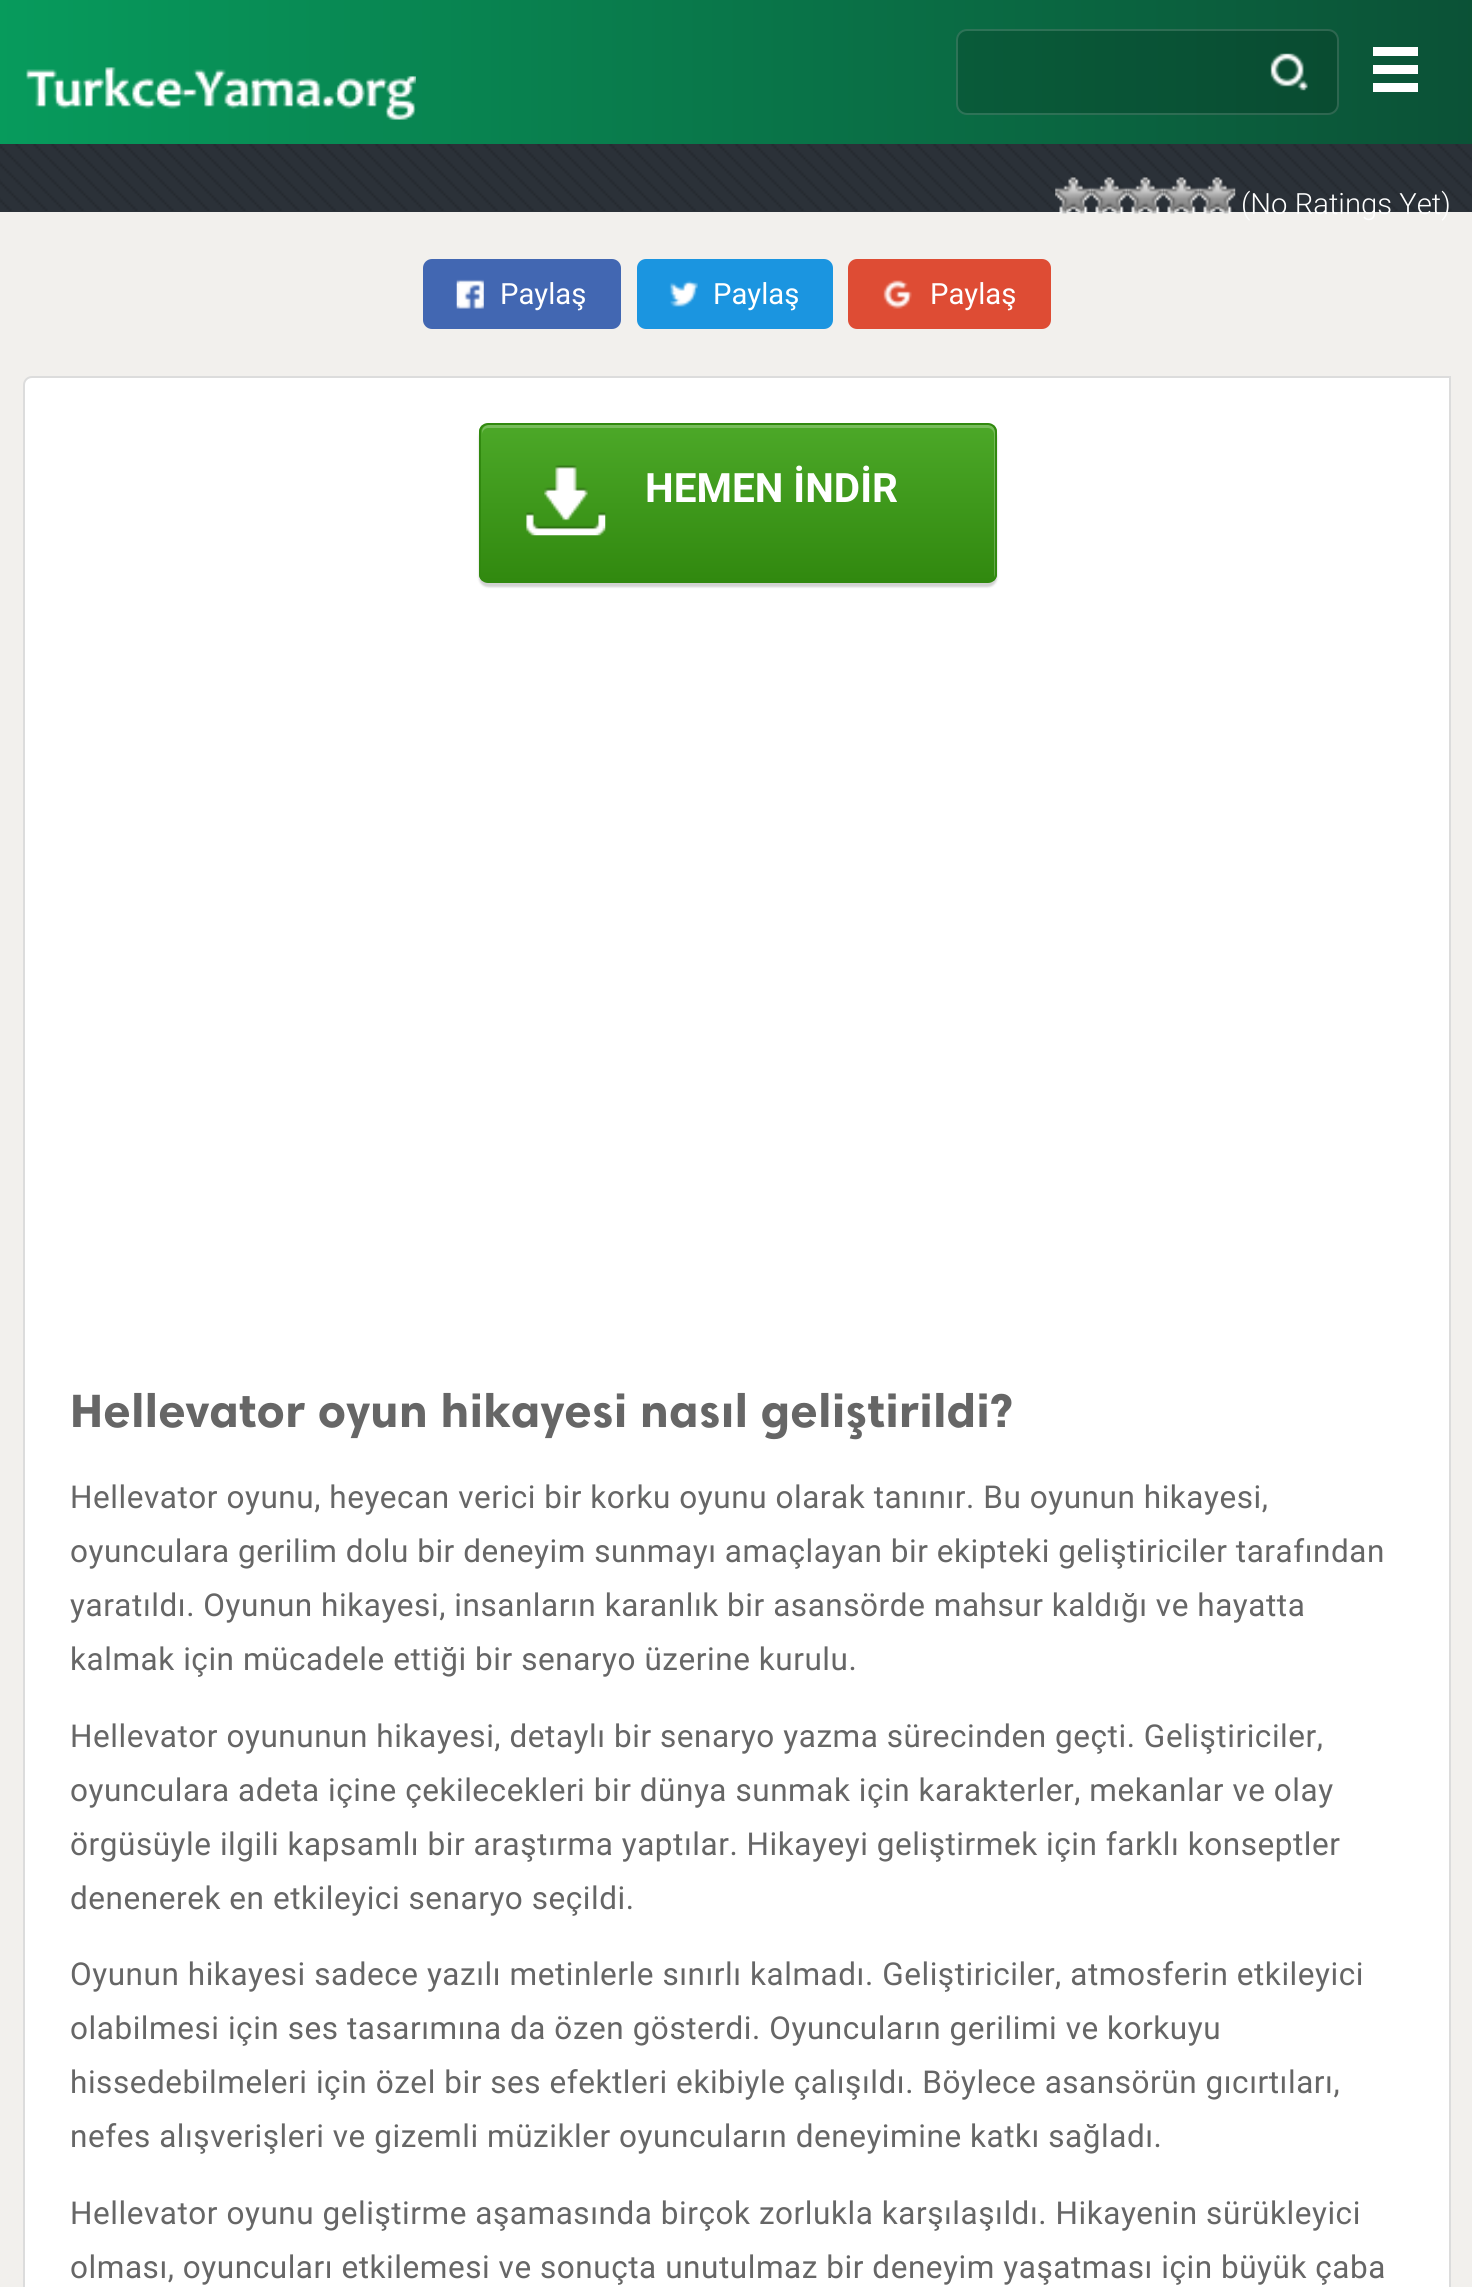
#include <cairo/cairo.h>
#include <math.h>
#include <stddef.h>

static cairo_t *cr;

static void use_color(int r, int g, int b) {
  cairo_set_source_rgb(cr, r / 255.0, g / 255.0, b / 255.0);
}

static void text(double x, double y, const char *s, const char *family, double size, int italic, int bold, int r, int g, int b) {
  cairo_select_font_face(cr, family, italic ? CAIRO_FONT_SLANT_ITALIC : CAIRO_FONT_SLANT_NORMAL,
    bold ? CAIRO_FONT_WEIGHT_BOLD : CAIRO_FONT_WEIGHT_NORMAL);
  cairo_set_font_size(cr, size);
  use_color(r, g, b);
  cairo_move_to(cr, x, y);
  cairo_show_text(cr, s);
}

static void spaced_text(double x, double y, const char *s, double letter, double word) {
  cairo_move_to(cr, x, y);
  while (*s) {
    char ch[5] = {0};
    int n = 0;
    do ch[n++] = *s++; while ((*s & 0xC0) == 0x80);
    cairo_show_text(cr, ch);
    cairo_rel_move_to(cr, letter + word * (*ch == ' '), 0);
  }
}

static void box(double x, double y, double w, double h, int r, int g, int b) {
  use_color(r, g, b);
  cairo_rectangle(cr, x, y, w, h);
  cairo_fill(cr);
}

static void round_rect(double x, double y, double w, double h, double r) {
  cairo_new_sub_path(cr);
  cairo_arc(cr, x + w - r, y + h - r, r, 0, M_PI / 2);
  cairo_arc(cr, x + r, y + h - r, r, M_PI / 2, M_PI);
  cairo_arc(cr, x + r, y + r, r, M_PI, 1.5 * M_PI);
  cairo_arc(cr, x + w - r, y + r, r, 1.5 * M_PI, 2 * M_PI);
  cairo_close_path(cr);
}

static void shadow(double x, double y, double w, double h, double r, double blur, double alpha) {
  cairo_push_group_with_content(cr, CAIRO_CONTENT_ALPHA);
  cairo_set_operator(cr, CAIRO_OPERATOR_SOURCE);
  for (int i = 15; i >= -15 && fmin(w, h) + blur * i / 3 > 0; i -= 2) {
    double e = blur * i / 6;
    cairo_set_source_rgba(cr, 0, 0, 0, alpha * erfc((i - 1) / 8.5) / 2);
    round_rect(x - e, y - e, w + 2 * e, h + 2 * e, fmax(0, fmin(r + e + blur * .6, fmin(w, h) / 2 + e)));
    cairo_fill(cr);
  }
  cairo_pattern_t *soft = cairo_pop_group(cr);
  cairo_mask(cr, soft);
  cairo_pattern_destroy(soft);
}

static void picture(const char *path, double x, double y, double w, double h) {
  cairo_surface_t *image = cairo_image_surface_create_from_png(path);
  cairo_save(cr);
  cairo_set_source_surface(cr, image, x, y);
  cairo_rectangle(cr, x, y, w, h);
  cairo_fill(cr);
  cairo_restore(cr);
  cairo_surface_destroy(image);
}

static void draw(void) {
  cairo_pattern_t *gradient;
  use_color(242, 240, 237);
  cairo_paint(cr);
  box(0, 0, 1472, 212, 43, 49, 56);
  picture("img_03.png", 0, 0, 1472, 211);
  gradient = cairo_pattern_create_linear(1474, 72, 0, 72);
  cairo_pattern_add_color_stop_rgba(gradient, 0, 0.039, 0.329, 0.212, 0.95);
  cairo_pattern_add_color_stop_rgba(gradient, 1, 0.02, 0.631, 0.369, 0.95);
  cairo_set_source(cr, gradient);
  cairo_pattern_destroy(gradient);
  cairo_rectangle(cr, 0, 0, 1472, 144);
  cairo_fill(cr);
  picture("img_01.png", 26, 67, 390, 53);
  cairo_set_source_rgba(cr, 0, 0, 0, 0.15);
  round_rect(956, 29, 383, 86, 11);
  cairo_fill(cr);
  round_rect(957, 30, 381, 84, 10);
  cairo_set_source_rgba(cr, 1, 1, 1, 0.15);
  cairo_stroke(cr);
  picture("img_02.png", 1270, 53, 38, 38);
  box(1373, 65, 45, 9, 255, 255, 255);
  box(1373, 47, 45, 9, 255, 255, 255);
  box(1373, 83, 45, 9, 255, 255, 255);
  picture("img_04.png", 1055, 177, 37, 37);
  picture("img_05.png", 1091, 177, 37, 37);
  picture("img_05.png", 1127, 177, 37, 37);
  picture("img_05.png", 1163, 177, 37, 37);
  picture("img_05.png", 1199, 177, 37, 37);
  use_color(66, 103, 178);
  round_rect(423, 259, 198, 70, 9);
  cairo_fill(cr);
  picture("img_06.png", 456, 279, 28, 30);
  use_color(27, 149, 224);
  round_rect(637, 259, 196, 70, 9);
  cairo_fill(cr);
  picture("img_07.png", 669, 280, 29, 27);
  use_color(222, 76, 52);
  round_rect(848, 259, 203, 70, 9);
  cairo_fill(cr);
  picture("img_08.png", 883, 280, 29, 29);
  use_color(255, 255, 255);
  cairo_new_path(cr);
  cairo_move_to(cr, 32, 377);
  cairo_line_to(cr, 1450, 377);
  cairo_line_to(cr, 1450, 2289);
  cairo_curve_to(cr, 1450, 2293.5, 1446.5, 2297, 1442, 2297);
  cairo_line_to(cr, 32, 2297);
  cairo_curve_to(cr, 27.5, 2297, 24, 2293.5, 24, 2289);
  cairo_line_to(cr, 24, 385);
  cairo_curve_to(cr, 24, 380.5, 27.5, 377, 32, 377);
  cairo_close_path(cr);
  cairo_fill_preserve(cr);
  use_color(220, 220, 220);
  cairo_stroke(cr);
  use_color(0, 0, 0);
  shadow(479, 428, 518, 159, 9, 1, 0.18);
  cairo_save(cr);
  round_rect(479, 423, 518, 160, 9);
  cairo_clip(cr);
  gradient = cairo_pattern_create_linear(738, 581, 738, 425);
  cairo_pattern_add_color_stop_rgba(gradient, 0, 0.192, 0.537, 0.059, 1);
  cairo_pattern_add_color_stop_rgba(gradient, 1, 0.298, 0.659, 0.157, 1);
  cairo_set_source(cr, gradient);
  cairo_pattern_destroy(gradient);
  cairo_rectangle(cr, 479, 425, 518, 156);
  cairo_fill(cr);
  cairo_restore(cr);
  cairo_set_source_rgba(cr, 1, 1, 1, 0.24);
  cairo_new_path(cr);
  cairo_move_to(cr, 488, 428);
  cairo_line_to(cr, 988, 428);
  cairo_curve_to(cr, 991, 428, 994, 431, 994, 434);
  cairo_line_to(cr, 994, 578);
  cairo_curve_to(cr, 995, 577, 995, 575, 995, 574);
  cairo_line_to(cr, 995, 432);
  cairo_curve_to(cr, 995, 428, 992, 425, 988, 425);
  cairo_line_to(cr, 489, 425);
  cairo_curve_to(cr, 485, 425, 482, 428, 482, 432);
  cairo_line_to(cr, 482, 434);
  cairo_curve_to(cr, 482, 431, 485, 428, 488, 428);
  cairo_close_path(cr);
  cairo_fill(cr);
  round_rect(480, 424, 516, 158, 8);
  use_color(49, 137, 15);
  cairo_stroke(cr);
  picture("img_09.png", 526, 465, 80, 71);
  text(1241, 214, "(No Ratings Yet)", "Roboto Light", 29.25, 0, 0, 255, 255, 255);
  text(500, 304, "Paylaş", "Roboto", 29.25, 0, 0, 255, 255, 255);
  text(713, 304, "Paylaş", "Roboto", 29.25, 0, 0, 255, 255, 255);
  text(930, 304, "Paylaş", "Roboto", 29.25, 0, 0, 255, 255, 255);
  text(645, 502, "HEMEN İNDİR", "Roboto", 40.5, 0, 1, 255, 255, 255);
  cairo_select_font_face(cr, "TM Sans", CAIRO_FONT_SLANT_NORMAL, CAIRO_FONT_WEIGHT_BOLD);
  cairo_set_font_size(cr, 47.25);
  use_color(102, 102, 102);
  spaced_text(70, 1427, "Hellevator oyun hikayesi nasıl geliştirildi?", 0.55, 0);
  cairo_select_font_face(cr, "Roboto", CAIRO_FONT_SLANT_NORMAL, CAIRO_FONT_WEIGHT_NORMAL);
  cairo_set_font_size(cr, 31.5);
  spaced_text(70, 1508, "Hellevator oyunu, heyecan verici bir korku oyunu olarak tanınır. Bu oyunun hikayesi,", 0.55, 0);
  spaced_text(70, 1562, "oyunculara gerilim dolu bir deneyim sunmayı amaçlayan bir ekipteki geliştiriciler tarafından", 0.55, 0);
  spaced_text(70, 1616, "yaratıldı. Oyunun hikayesi, insanların karanlık bir asansörde mahsur kaldığı ve hayatta", 0.55, 0);
  spaced_text(70, 1670, "kalmak için mücadele ettiği bir senaryo üzerine kurulu.", 0.55, 0);
  spaced_text(70, 1747, "Hellevator oyununun hikayesi, detaylı bir senaryo yazma sürecinden geçti. Geliştiriciler,", 0.55, 0);
  spaced_text(70, 1801, "oyunculara adeta içine çekilecekleri bir dünya sunmak için karakterler, mekanlar ve olay", 0.55, 0);
  spaced_text(70, 1855, "örgüsüyle ilgili kapsamlı bir araştırma yaptılar. Hikayeyi geliştirmek için farklı konseptler", 0.55, 0);
  spaced_text(70, 1909, "denenerek en etkileyici senaryo seçildi.", 0.55, 0);
  spaced_text(70, 1985, "Oyunun hikayesi sadece yazılı metinlerle sınırlı kalmadı. Geliştiriciler, atmosferin etkileyici", 0.55, 0);
  spaced_text(70, 2039, "olabilmesi için ses tasarımına da özen gösterdi. Oyuncuların gerilimi ve korkuyu", 0.55, 0);
  spaced_text(70, 2093, "hissedebilmeleri için özel bir ses efektleri ekibiyle çalışıldı. Böylece asansörün gıcırtıları,", 0.55, 0);
  spaced_text(70, 2147, "nefes alışverişleri ve gizemli müzikler oyuncuların deneyimine katkı sağladı.", 0.55, 0);
  spaced_text(70, 2224, "Hellevator oyunu geliştirme aşamasında birçok zorlukla karşılaşıldı. Hikayenin sürükleyici", 0.55, 0);
  spaced_text(70, 2278, "olması, oyuncuları etkilemesi ve sonuçta unutulmaz bir deneyim yaşatması için büyük çaba", 0.55, 0);
}

int main(void) {
  cairo_surface_t *surface = cairo_image_surface_create(CAIRO_FORMAT_RGB24, 1472, 2287);
  cr = cairo_create(surface);
  cairo_font_options_t *options = cairo_font_options_create();
  cairo_font_options_set_hint_metrics(options, CAIRO_HINT_METRICS_OFF);
  cairo_font_options_set_hint_style(options, CAIRO_HINT_STYLE_NONE);
  cairo_set_font_options(cr, options);
  cairo_set_miter_limit(cr, 4);
  draw();
  cairo_surface_write_to_png(surface, "out.png");
  cairo_font_options_destroy(options);
  cairo_destroy(cr);
  cairo_surface_destroy(surface);
  return 0;
}
